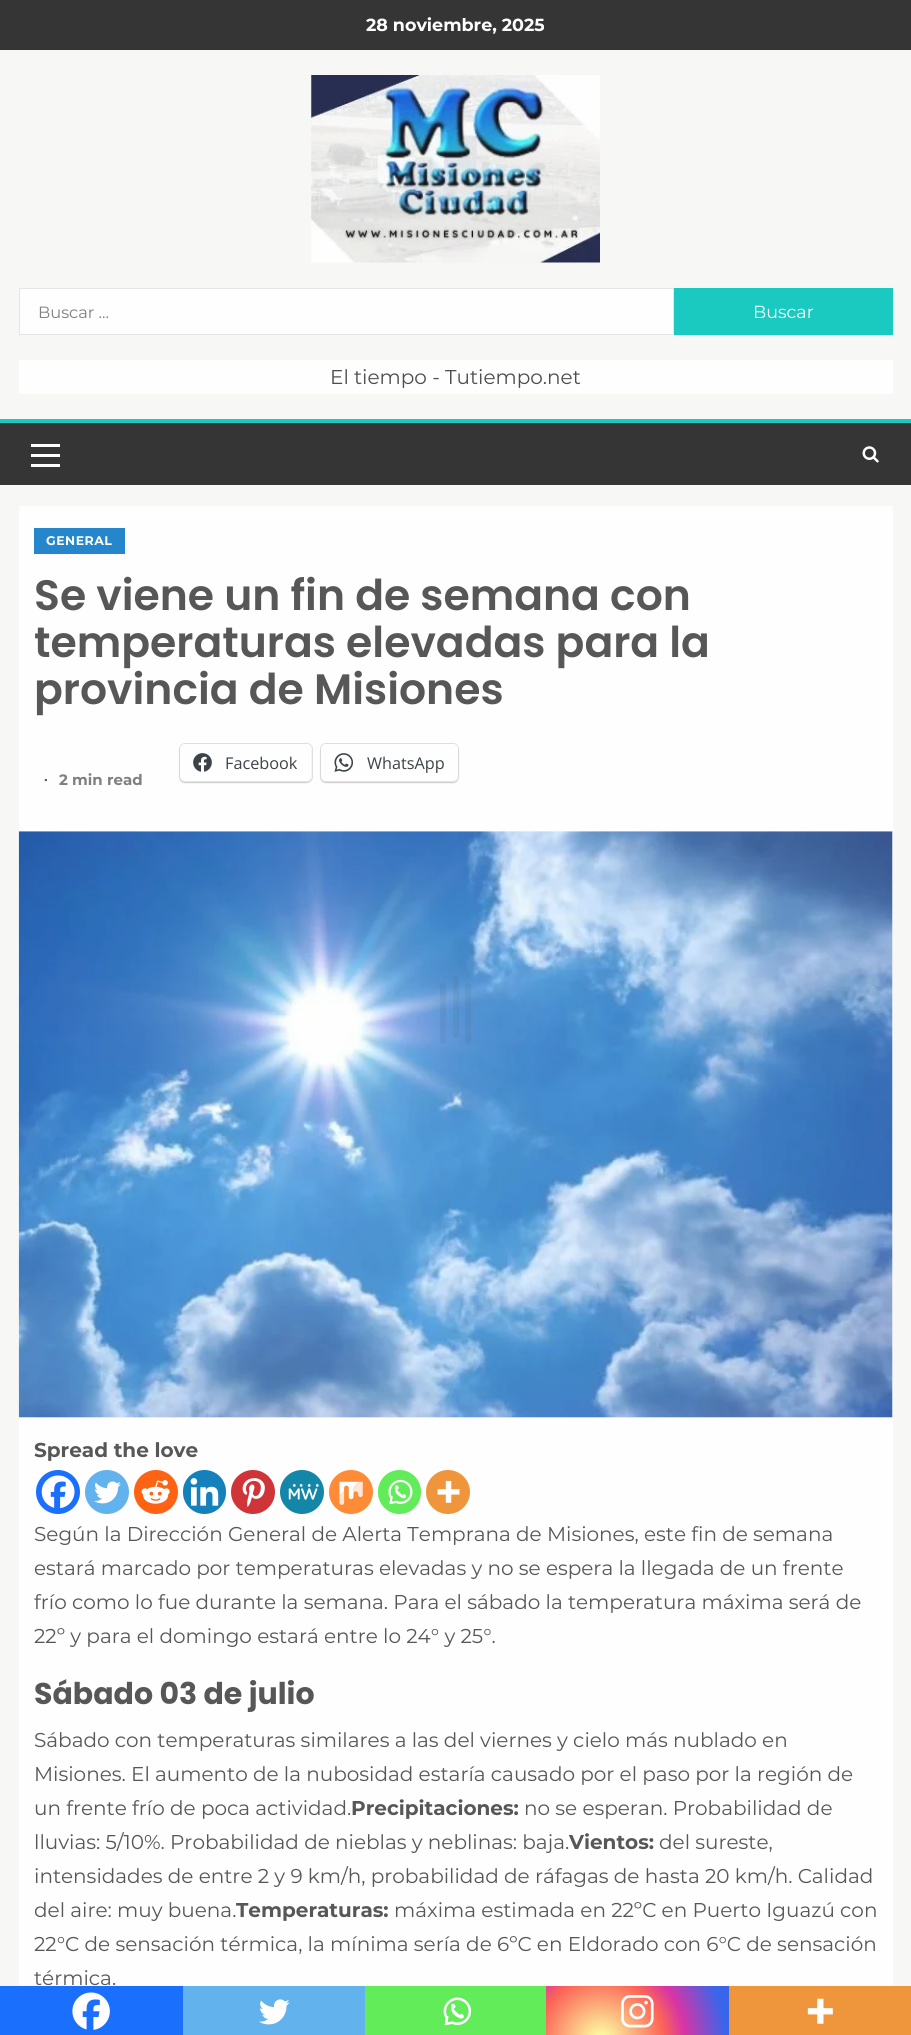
#include <cairo/cairo.h>
#include <math.h>
#include <stddef.h>

static cairo_t *cr;

static void use_color(int r, int g, int b) {
  cairo_set_source_rgb(cr, r / 255.0, g / 255.0, b / 255.0);
}

static void text(double x, double y, const char *s, const char *family, double size, int italic, int bold, int r, int g, int b) {
  cairo_select_font_face(cr, family, italic ? CAIRO_FONT_SLANT_ITALIC : CAIRO_FONT_SLANT_NORMAL,
    bold ? CAIRO_FONT_WEIGHT_BOLD : CAIRO_FONT_WEIGHT_NORMAL);
  cairo_set_font_size(cr, size);
  use_color(r, g, b);
  cairo_move_to(cr, x, y);
  cairo_show_text(cr, s);
}

static void spaced_text(double x, double y, const char *s, double letter, double word) {
  cairo_move_to(cr, x, y);
  while (*s) {
    char ch[5] = {0};
    int n = 0;
    do ch[n++] = *s++; while ((*s & 0xC0) == 0x80);
    cairo_show_text(cr, ch);
    cairo_rel_move_to(cr, letter + word * (*ch == ' '), 0);
  }
}

static void box(double x, double y, double w, double h, int r, int g, int b) {
  use_color(r, g, b);
  cairo_rectangle(cr, x, y, w, h);
  cairo_fill(cr);
}

static void round_rect(double x, double y, double w, double h, double r) {
  cairo_new_sub_path(cr);
  cairo_arc(cr, x + w - r, y + h - r, r, 0, M_PI / 2);
  cairo_arc(cr, x + r, y + h - r, r, M_PI / 2, M_PI);
  cairo_arc(cr, x + r, y + r, r, M_PI, 1.5 * M_PI);
  cairo_arc(cr, x + w - r, y + r, r, 1.5 * M_PI, 2 * M_PI);
  cairo_close_path(cr);
}

static void shadow(double x, double y, double w, double h, double r, double blur, double alpha) {
  cairo_push_group_with_content(cr, CAIRO_CONTENT_ALPHA);
  cairo_set_operator(cr, CAIRO_OPERATOR_SOURCE);
  for (int i = 15; i >= -15 && fmin(w, h) + blur * i / 3 > 0; i -= 2) {
    double e = blur * i / 6;
    cairo_set_source_rgba(cr, 0, 0, 0, alpha * erfc((i - 1) / 8.5) / 2);
    round_rect(x - e, y - e, w + 2 * e, h + 2 * e, fmax(0, fmin(r + e + blur * .6, fmin(w, h) / 2 + e)));
    cairo_fill(cr);
  }
  cairo_pattern_t *soft = cairo_pop_group(cr);
  cairo_mask(cr, soft);
  cairo_pattern_destroy(soft);
}

static void picture(const char *path, double x, double y, double w, double h) {
  cairo_surface_t *image = cairo_image_surface_create_from_png(path);
  cairo_save(cr);
  cairo_set_source_surface(cr, image, x, y);
  cairo_rectangle(cr, x, y, w, h);
  cairo_fill(cr);
  cairo_restore(cr);
  cairo_surface_destroy(image);
}

static void draw(void) {
  cairo_pattern_t *gradient;
  use_color(247, 247, 246);
  cairo_paint(cr);
  box(0, 0, 911, 50, 54, 53, 53);
  picture("img_01.png", 311, 75, 289, 188);
  use_color(254, 254, 254);
  cairo_rectangle(cr, 19.5, 288.5, 654, 46);
  cairo_fill_preserve(cr);
  use_color(229, 229, 229);
  cairo_set_line_width(cr, 1);
  cairo_stroke(cr);
  box(674, 288, 219, 47, 26, 202, 193);
  box(19, 360, 874, 34, 254, 254, 254);
  box(0, 423, 911, 62, 54, 53, 53);
  box(0, 419, 911, 4, 26, 202, 193);
  box(31, 454, 29, 3, 254, 254, 254);
  box(31, 444, 29, 3, 254, 254, 254);
  box(31, 464, 29, 3, 254, 254, 254);
  picture("img_02.png", 862, 446, 17, 17);
  box(19, 506, 874, 325, 254, 254, 254);
  box(34, 528, 91, 26, 37, 134, 204);
  round_rect(179.5, 743.5, 133, 39, 5.5);
  use_color(226, 225, 225);
  cairo_stroke(cr);
  use_color(20, 19, 19);
  shadow(180, 745, 131, 38, 5, 1, 0.12);
  use_color(254, 254, 254);
  round_rect(180, 744, 131, 37, 5);
  cairo_fill(cr);
  picture("img_03.png", 193, 753, 19, 19);
  round_rect(320.5, 743.5, 138, 39, 5.5);
  use_color(226, 225, 225);
  cairo_stroke(cr);
  use_color(20, 19, 19);
  shadow(321, 745, 137, 38, 5, 1, 0.12);
  use_color(254, 254, 254);
  round_rect(321, 744, 137, 37, 5);
  cairo_fill(cr);
  picture("img_04.png", 334, 753, 20, 19);
  picture("img_05.png", 18, 831, 875, 587);
  box(19, 1418, 874, 568, 254, 254, 254);
  use_color(26, 112, 253);
  cairo_arc(cr, 58, 1492, 22, 0, 2 * M_PI);
  cairo_fill(cr);
  picture("img_06.png", 41, 1475, 34, 34);
  use_color(98, 178, 238);
  cairo_arc(cr, 107, 1492, 22, 0, 2 * M_PI);
  cairo_fill(cr);
  picture("img_07.png", 94, 1481, 27, 23);
  use_color(254, 99, 19);
  cairo_arc(cr, 156, 1492, 22, 0, 2 * M_PI);
  cairo_fill(cr);
  picture("img_08.png", 141, 1480, 29, 24);
  use_color(20, 129, 186);
  round_rect(183, 1470, 43, 44, 21.5);
  cairo_fill(cr);
  picture("img_09.png", 190, 1478, 29, 28);
  use_color(207, 52, 57);
  cairo_arc(cr, 253, 1492, 22, 0, 2 * M_PI);
  cairo_fill(cr);
  picture("img_10.png", 242, 1478, 23, 29);
  use_color(20, 134, 167);
  cairo_arc(cr, 302, 1492, 22, 0, 2 * M_PI);
  cairo_fill(cr);
  picture("img_11.png", 288, 1484, 31, 16);
  use_color(254, 139, 54);
  cairo_arc(cr, 351, 1492, 22, 0, 2 * M_PI);
  cairo_fill(cr);
  picture("img_12.png", 339, 1481, 24, 24);
  use_color(98, 236, 89);
  round_rect(378, 1470, 43, 44, 21.5);
  cairo_fill(cr);
  picture("img_13.png", 388, 1479, 25, 26);
  use_color(239, 150, 60);
  cairo_arc(cr, 448, 1492, 22, 0, 2 * M_PI);
  cairo_fill(cr);
  picture("img_14.png", 437, 1480, 23, 23);
  box(0, 1986, 183, 49, 26, 112, 253);
  picture("img_15.png", 72, 1992, 38, 38);
  box(183, 1986, 182, 49, 98, 178, 238);
  picture("img_16.png", 259, 1999, 31, 26);
  box(365, 1986, 181, 49, 98, 236, 89);
  picture("img_17.png", 443, 1997, 29, 29);
  gradient = cairo_pattern_create_radial(601, 2040, 0, 601, 2040, 139);
  cairo_pattern_add_color_stop_rgba(gradient, 0, 0.988, 0.957, 0.62, 1);
  cairo_pattern_add_color_stop_rgba(gradient, 0.05, 0.988, 0.957, 0.62, 1);
  cairo_pattern_add_color_stop_rgba(gradient, 0.45, 0.988, 0.396, 0.337, 1);
  cairo_pattern_add_color_stop_rgba(gradient, 0.6, 0.847, 0.204, 0.647, 1);
  cairo_pattern_add_color_stop_rgba(gradient, 0.9, 0.22, 0.4, 0.922, 1);
  cairo_set_source(cr, gradient);
  cairo_pattern_destroy(gradient);
  cairo_rectangle(cr, 546, 1986, 183, 49);
  cairo_fill(cr);
  picture("img_18.png", 621, 1995, 33, 33);
  box(729, 1986, 182, 49, 239, 150, 60);
  picture("img_19.png", 807, 1998, 26, 26);
  cairo_set_source_rgba(cr, 0.29, 0.29, 0.29, 0.08);
  round_rect(453, 976, 6, 62, 3);
  cairo_fill(cr);
  round_rect(440, 983, 6, 61, 3);
  cairo_fill(cr);
  round_rect(465, 983, 6, 61, 3);
  cairo_fill(cr);
  text(366, 31, "28 noviembre, 2025", "Montserrat", 17.5, 0, 1, 254, 254, 254);
  text(38, 318, "Buscar …", "Montserrat", 16.25, 0, 0, 127, 127, 127);
  text(753, 318, "Buscar", "Montserrat", 17.5, 0, 0, 254, 254, 254);
  text(330, 384, "El tiempo - Tutiempo.net", "Montserrat", 20, 0, 0, 78, 78, 78);
  cairo_select_font_face(cr, "Montserrat", CAIRO_FONT_SLANT_NORMAL, CAIRO_FONT_WEIGHT_BOLD);
  cairo_set_font_size(cr, 12.5);
  use_color(254, 254, 254);
  spaced_text(46, 545, "GENERAL", 0.5, 0);
  text(34, 610, "Se viene un fin de semana con", "Poppins SemiBold", 42.5, 0, 0, 88, 87, 87);
  text(34, 657, "temperaturas elevadas para la", "Poppins SemiBold", 42.5, 0, 0, 88, 87, 87);
  text(34, 704, "provincia de Misiones", "Poppins SemiBold", 42.5, 0, 0, 88, 87, 87);
  text(225, 769, "Facebook", "Open Sans", 16.25, 0, 0, 60, 66, 71);
  text(367, 769, "WhatsApp", "Open Sans", 16.25, 0, 0, 60, 66, 71);
  text(44, 785, "∙", "Liberation Serif", 15, 0, 1, 88, 87, 87);
  text(59, 785, "2 min read", "Montserrat", 15, 0, 1, 127, 127, 127);
  text(34, 1457, "Spread the love", "Montserrat", 20, 0, 1, 88, 87, 87);
  text(34, 1541, "Según la Dirección General de Alerta Temprana de Misiones, este fin de semana", "Montserrat", 20, 0, 0, 88, 87, 87);
  text(34, 1575, "estará marcado por temperaturas elevadas y no se espera la llegada de un frente", "Montserrat", 20, 0, 0, 88, 87, 87);
  text(34, 1609, "frío como lo fue durante la semana. Para el sábado la temperatura máxima será de", "Montserrat", 20, 0, 0, 88, 87, 87);
  text(34, 1643, "22º y para el domingo estará entre lo 24° y 25°.", "Montserrat", 20, 0, 0, 88, 87, 87);
  text(34, 1704, "Sábado 03 de julio", "Poppins", 30, 0, 1, 88, 87, 87);
  text(34, 1747, "Sábado con temperaturas similares a las del viernes y cielo más nublado en", "Montserrat", 20, 0, 0, 88, 87, 87);
  text(34, 1781, "Misiones. El aumento de la nubosidad estaría causado por el paso por la región de", "Montserrat", 20, 0, 0, 88, 87, 87);
  text(34, 1815, "un frente frío de poca actividad.", "Montserrat", 20, 0, 0, 88, 87, 87);
  text(351, 1815, "Precipitaciones:", "Montserrat", 20, 0, 1, 88, 87, 87);
  text(524, 1815, "no se esperan. Probabilidad de", "Montserrat", 20, 0, 0, 88, 87, 87);
  text(34, 1849, "lluvias: 5/10%. Probabilidad de nieblas y neblinas: baja.", "Montserrat", 20, 0, 0, 88, 87, 87);
  text(569, 1849, "Vientos:", "Montserrat", 20, 0, 1, 88, 87, 87);
  text(659, 1849, "del sureste,", "Montserrat", 20, 0, 0, 88, 87, 87);
  text(34, 1883, "intensidades de entre 2 y 9 km/h, probabilidad de ráfagas de hasta 20 km/h. Calidad", "Montserrat", 20, 0, 0, 88, 87, 87);
  text(34, 1917, "del aire: muy buena.", "Montserrat", 20, 0, 0, 88, 87, 87);
  text(236, 1917, "Temperaturas:", "Montserrat", 20, 0, 1, 88, 87, 87);
  text(394, 1917, "máxima estimada en 22ºC en Puerto Iguazú con", "Montserrat", 20, 0, 0, 88, 87, 87);
  text(34, 1951, "22°C de sensación térmica, la mínima sería de 6ºC en Eldorado con 6°C de sensación", "Montserrat", 20, 0, 0, 88, 87, 87);
  text(34, 1985, "térmica.", "Montserrat", 20, 0, 0, 88, 87, 87);
}

int main(void) {
  cairo_surface_t *surface = cairo_image_surface_create(CAIRO_FORMAT_RGB24, 911, 2035);
  cr = cairo_create(surface);
  cairo_font_options_t *options = cairo_font_options_create();
  cairo_font_options_set_hint_metrics(options, CAIRO_HINT_METRICS_OFF);
  cairo_font_options_set_hint_style(options, CAIRO_HINT_STYLE_NONE);
  cairo_set_font_options(cr, options);
  cairo_set_miter_limit(cr, 4);
  draw();
  cairo_surface_write_to_png(surface, "out.png");
  cairo_font_options_destroy(options);
  cairo_destroy(cr);
  cairo_surface_destroy(surface);
  return 0;
}
